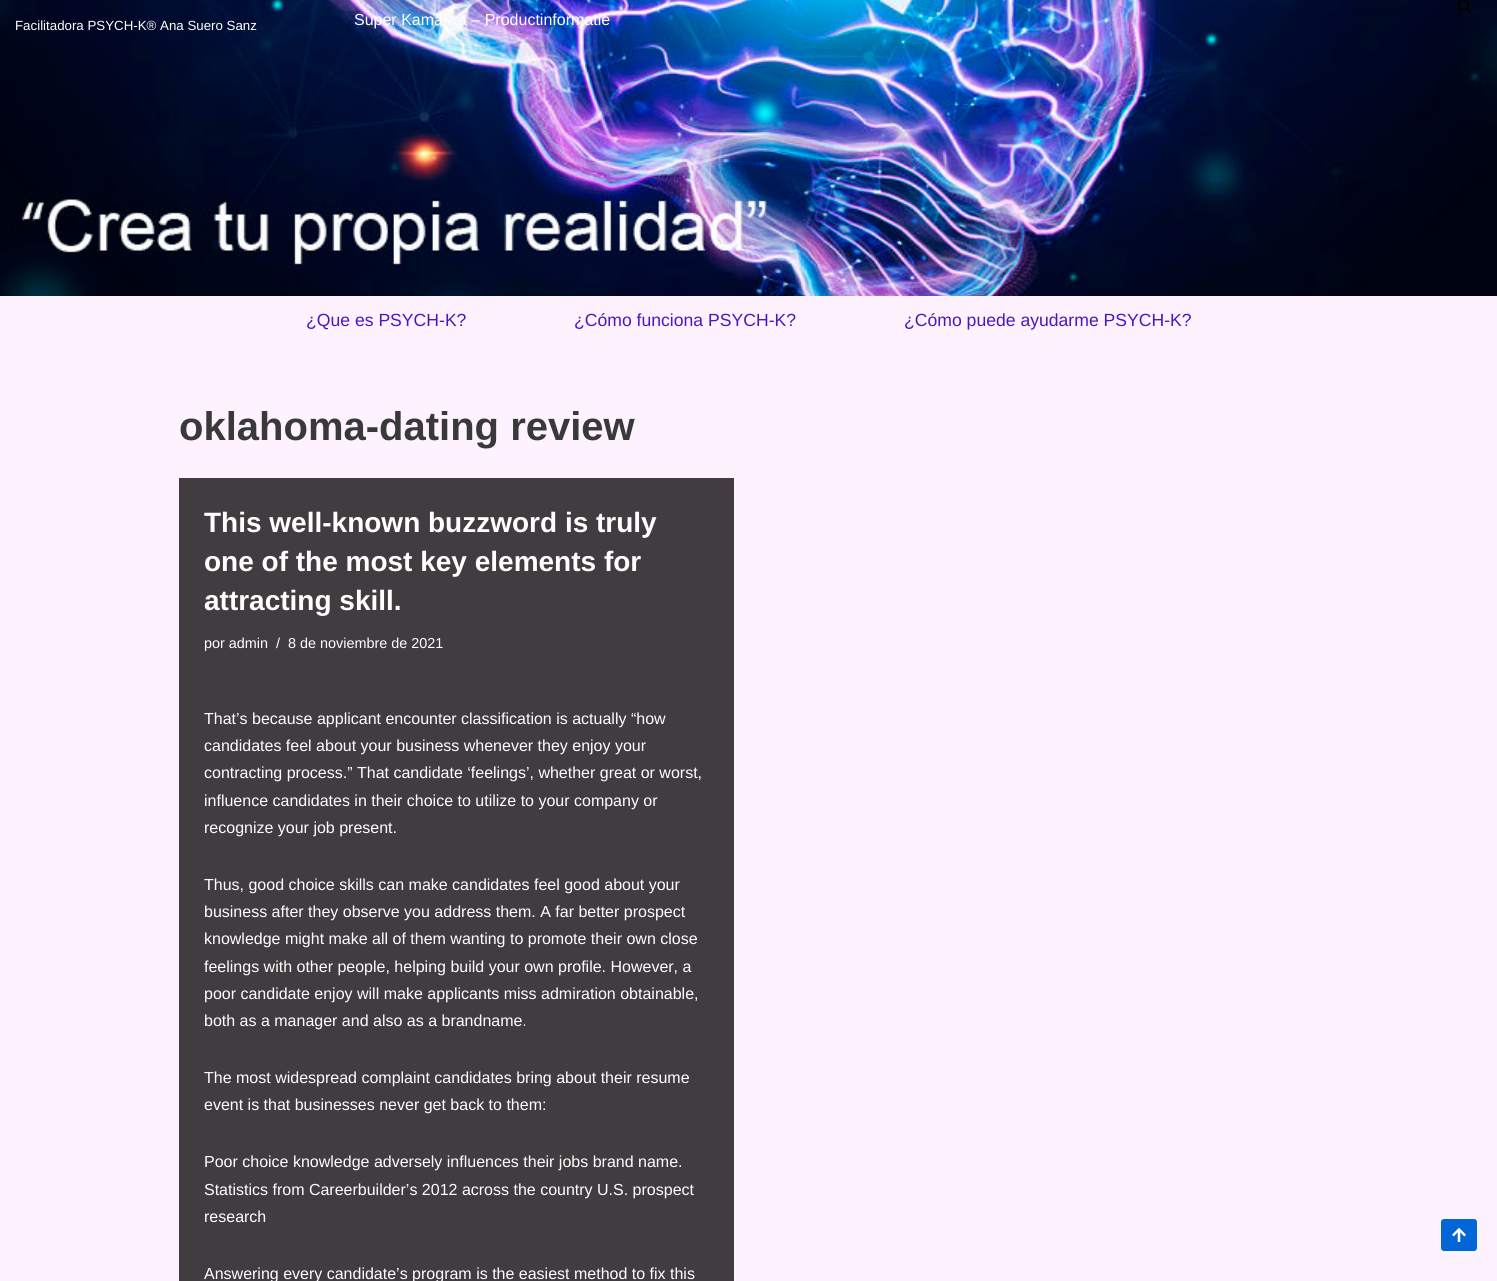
#include <cairo/cairo.h>
#include <math.h>
#include <stddef.h>

static cairo_t *cr;

static void use_color(int r, int g, int b) {
  cairo_set_source_rgb(cr, r / 255.0, g / 255.0, b / 255.0);
}

static void text(double x, double y, const char *s, const char *family, double size, int italic, int bold, int r, int g, int b) {
  cairo_select_font_face(cr, family, italic ? CAIRO_FONT_SLANT_ITALIC : CAIRO_FONT_SLANT_NORMAL,
    bold ? CAIRO_FONT_WEIGHT_BOLD : CAIRO_FONT_WEIGHT_NORMAL);
  cairo_set_font_size(cr, size);
  use_color(r, g, b);
  cairo_move_to(cr, x, y);
  cairo_show_text(cr, s);
}

static void box(double x, double y, double w, double h, int r, int g, int b) {
  use_color(r, g, b);
  cairo_rectangle(cr, x, y, w, h);
  cairo_fill(cr);
}

static void round_rect(double x, double y, double w, double h, double r) {
  cairo_new_sub_path(cr);
  cairo_arc(cr, x + w - r, y + h - r, r, 0, M_PI / 2);
  cairo_arc(cr, x + r, y + h - r, r, M_PI / 2, M_PI);
  cairo_arc(cr, x + r, y + r, r, M_PI, 1.5 * M_PI);
  cairo_arc(cr, x + w - r, y + r, r, 1.5 * M_PI, 2 * M_PI);
  cairo_close_path(cr);
}

static void picture(const char *path, double x, double y, double w, double h) {
  cairo_surface_t *image = cairo_image_surface_create_from_png(path);
  cairo_save(cr);
  cairo_set_source_surface(cr, image, x, y);
  cairo_rectangle(cr, x, y, w, h);
  cairo_fill(cr);
  cairo_restore(cr);
  cairo_surface_destroy(image);
}

static void draw(void) {
  use_color(255, 242, 255);
  cairo_paint(cr);
  picture("img_01.png", 0, 0, 1497, 296);
  picture("img_02.png", 1457, 0, 15, 13);
  box(179, 478, 555, 803, 64, 60, 64);
  use_color(3, 102, 214);
  round_rect(1441, 1219, 36, 32, 3);
  cairo_fill(cr);
  picture("img_03.png", 1452, 1228, 14, 14);
  text(15, 30, "Facilitadora PSYCH-K® Ana Suero Sanz", "Liberation Sans", 13.3, 0, 0, 255, 255, 255);
  text(354, 25, "Super Kama", "Liberation Sans", 16, 0, 0, 255, 255, 255);
  text(458, 25, "a – Productinformatie", "Liberation Sans", 16, 0, 0, 255, 255, 255);
  text(306, 326, "¿Que es PSYCH-K?", "Liberation Sans", 17.6, 0, 0, 74, 22, 196);
  text(574, 326, "¿Cómo funciona PSYCH-K?", "Liberation Sans", 17.6, 0, 0, 74, 22, 196);
  text(904, 326, "¿Cómo puede ayudarme PSYCH-K?", "Liberation Sans", 17.6, 0, 0, 74, 22, 196);
  text(179, 440, "oklahoma-dating review", "Liberation Sans", 40, 0, 1, 57, 57, 57);
  text(204, 532, "This well-known buzzword is truly", "Liberation Sans", 28, 0, 1, 255, 255, 255);
  text(204, 571, "one of the most key elements for", "Liberation Sans", 28, 0, 1, 255, 255, 255);
  text(204, 610, "attracting skill.", "Liberation Sans", 28, 0, 1, 255, 255, 255);
  text(204, 648, "por admin", "Liberation Sans", 14.4, 0, 0, 255, 255, 255);
  text(276, 648, "/", "Liberation Sans", 14.4, 0, 0, 255, 255, 255);
  text(288, 648, "8 de noviembre de 2021", "Liberation Sans", 14.4, 0, 0, 255, 255, 255);
  text(204, 724, "That’s because applicant encounter classification is actually “how", "Liberation Sans", 16, 0, 0, 255, 255, 255);
  text(204, 751, "candidates feel about your business whenever they enjoy your", "Liberation Sans", 16, 0, 0, 255, 255, 255);
  text(204, 778, "contracting process.” That candidate ‘feelings’, whether great or worst,", "Liberation Sans", 16, 0, 0, 255, 255, 255);
  text(204, 806, "influence candidates in their choice to utilize to your company or", "Liberation Sans", 16, 0, 0, 255, 255, 255);
  text(204, 833, "recognize your job present.", "Liberation Sans", 16, 0, 0, 255, 255, 255);
  text(204, 890, "Thus, good choice skills can make candidates feel good about your", "Liberation Sans", 16, 0, 0, 255, 255, 255);
  text(204, 917, "business after they observe you address them. A far better prospect", "Liberation Sans", 16, 0, 0, 255, 255, 255);
  text(204, 944, "knowledge might make all of them wanting to promote their own close", "Liberation Sans", 16, 0, 0, 255, 255, 255);
  text(204, 972, "feelings with other people, helping build your own profile. However, a", "Liberation Sans", 16, 0, 0, 255, 255, 255);
  text(204, 999, "poor candidate enjoy will make applicants miss admiration obtainable,", "Liberation Sans", 16, 0, 0, 255, 255, 255);
  text(204, 1026, "both as a manager and also as a brandname.", "Liberation Sans", 16, 0, 0, 255, 255, 255);
  text(204, 1083, "The most widespread complaint candidates bring about their resume", "Liberation Sans", 16, 0, 0, 255, 255, 255);
  text(204, 1110, "event is that businesses never get back to them:", "Liberation Sans", 16, 0, 0, 255, 255, 255);
  text(204, 1167, "Poor choice knowledge adversely influences their jobs brand name.", "Liberation Sans", 16, 0, 0, 255, 255, 255);
  text(204, 1195, "Statistics from Careerbuilder’s 2012 across the country U.S. prospect", "Liberation Sans", 16, 0, 0, 255, 255, 255);
  text(204, 1222, "research", "Liberation Sans", 16, 0, 0, 255, 255, 255);
  text(204, 1279, "Answering every candidate’s program is the easiest method to fix this", "Liberation Sans", 16, 0, 0, 255, 255, 255);
}

int main(void) {
  cairo_surface_t *surface = cairo_image_surface_create(CAIRO_FORMAT_RGB24, 1497, 1281);
  cr = cairo_create(surface);
  cairo_font_options_t *options = cairo_font_options_create();
  cairo_font_options_set_hint_metrics(options, CAIRO_HINT_METRICS_OFF);
  cairo_font_options_set_hint_style(options, CAIRO_HINT_STYLE_NONE);
  cairo_set_font_options(cr, options);
  cairo_set_miter_limit(cr, 4);
  draw();
  cairo_surface_write_to_png(surface, "out.png");
  cairo_font_options_destroy(options);
  cairo_destroy(cr);
  cairo_surface_destroy(surface);
  return 0;
}
